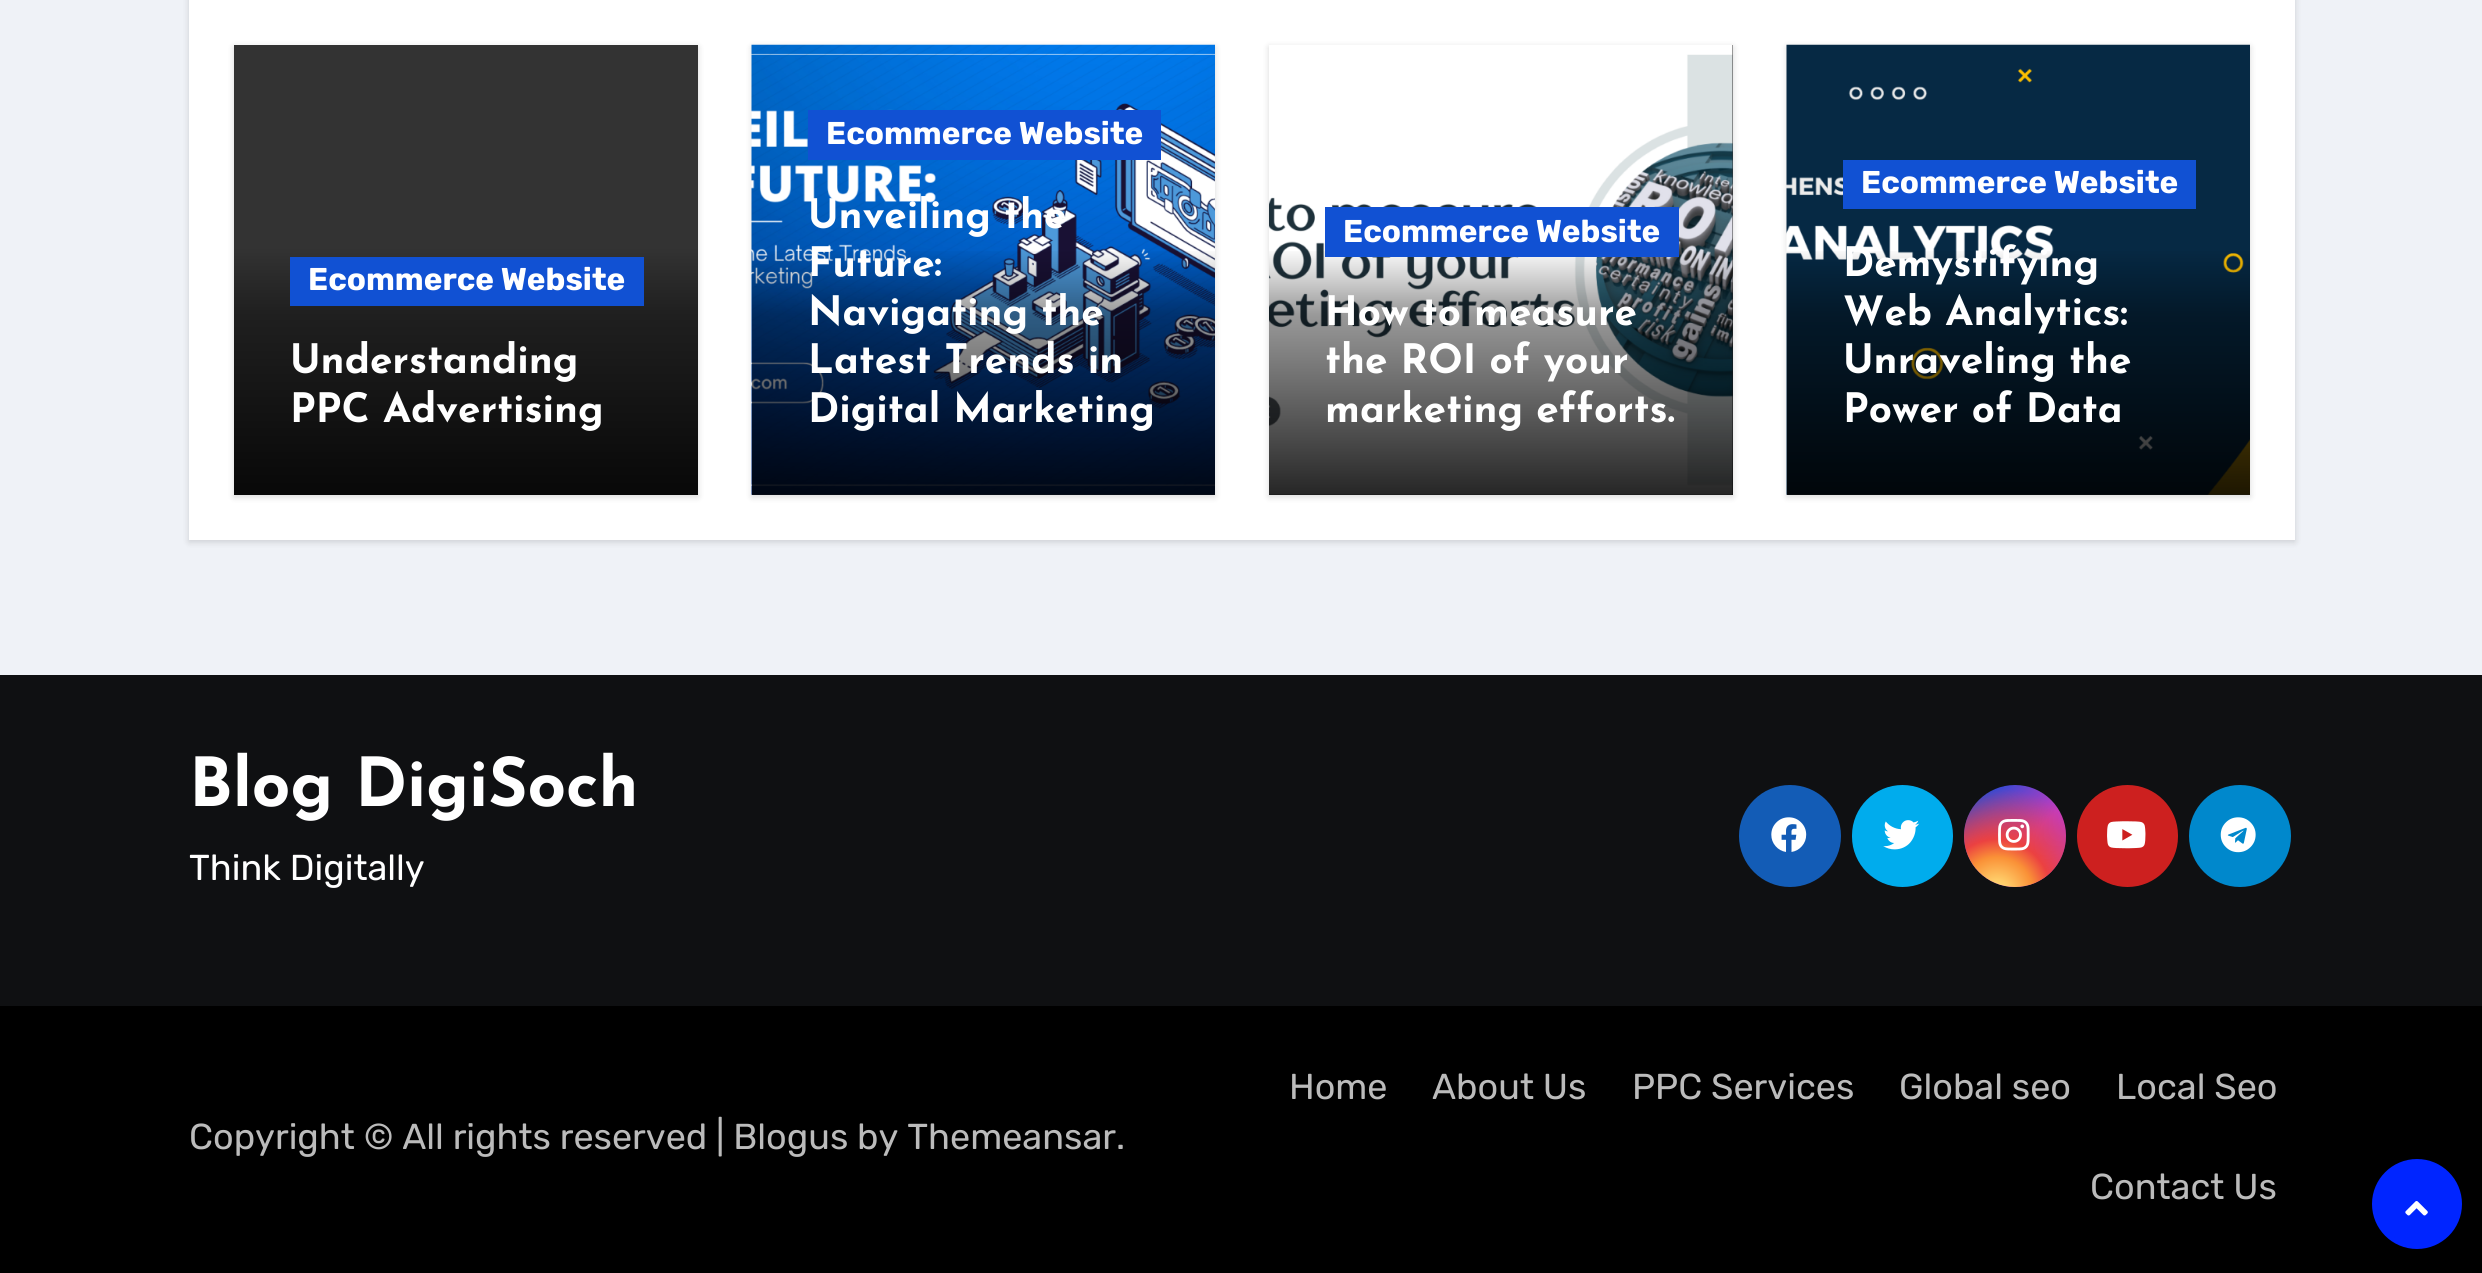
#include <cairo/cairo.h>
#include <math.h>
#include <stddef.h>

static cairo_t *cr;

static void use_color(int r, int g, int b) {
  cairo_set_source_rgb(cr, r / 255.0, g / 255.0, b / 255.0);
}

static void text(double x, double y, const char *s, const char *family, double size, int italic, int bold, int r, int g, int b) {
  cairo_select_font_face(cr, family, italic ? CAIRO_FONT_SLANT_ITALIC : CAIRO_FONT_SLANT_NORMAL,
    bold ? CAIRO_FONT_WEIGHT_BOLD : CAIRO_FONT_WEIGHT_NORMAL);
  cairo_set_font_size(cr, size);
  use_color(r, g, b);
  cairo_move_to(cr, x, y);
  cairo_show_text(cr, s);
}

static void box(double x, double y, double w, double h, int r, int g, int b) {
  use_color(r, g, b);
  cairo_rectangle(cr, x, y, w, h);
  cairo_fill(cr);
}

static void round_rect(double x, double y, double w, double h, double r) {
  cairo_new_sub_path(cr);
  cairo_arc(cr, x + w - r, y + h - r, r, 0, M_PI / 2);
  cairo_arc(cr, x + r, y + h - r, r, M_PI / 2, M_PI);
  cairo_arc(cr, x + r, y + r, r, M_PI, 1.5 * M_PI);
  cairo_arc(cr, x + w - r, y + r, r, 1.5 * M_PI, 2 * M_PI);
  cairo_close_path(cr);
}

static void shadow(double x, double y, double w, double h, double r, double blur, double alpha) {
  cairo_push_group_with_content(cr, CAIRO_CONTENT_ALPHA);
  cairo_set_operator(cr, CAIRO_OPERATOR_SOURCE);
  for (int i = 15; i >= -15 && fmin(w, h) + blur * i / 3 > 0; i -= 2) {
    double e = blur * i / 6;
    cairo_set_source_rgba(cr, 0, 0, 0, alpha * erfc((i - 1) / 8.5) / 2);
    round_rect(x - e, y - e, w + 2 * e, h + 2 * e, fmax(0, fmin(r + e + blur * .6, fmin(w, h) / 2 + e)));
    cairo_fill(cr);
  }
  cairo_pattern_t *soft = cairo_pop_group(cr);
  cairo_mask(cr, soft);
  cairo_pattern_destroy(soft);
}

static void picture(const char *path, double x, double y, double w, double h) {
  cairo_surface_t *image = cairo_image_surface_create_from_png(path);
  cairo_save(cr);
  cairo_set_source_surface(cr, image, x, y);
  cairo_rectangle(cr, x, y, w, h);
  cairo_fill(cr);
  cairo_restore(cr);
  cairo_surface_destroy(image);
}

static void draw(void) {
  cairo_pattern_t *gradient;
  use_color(239, 242, 247);
  cairo_paint(cr);
  use_color(0, 0, 0);
  shadow(189, -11, 2106, 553, 0, 3.5, 0.15);
  box(189, 0, 2106, 540, 255, 255, 255);
  use_color(0, 0, 0);
  shadow(234, 47, 464, 450, 0, 3.5, 0.15);
  gradient = cairo_pattern_create_linear(466, 45, 466, 495);
  cairo_pattern_add_color_stop_rgba(gradient, 0, 0.2, 0.2, 0.2, 1);
  cairo_pattern_add_color_stop_rgba(gradient, 0.45, 0.2, 0.2, 0.2, 1);
  cairo_pattern_add_color_stop_rgba(gradient, 0.6, 0.122, 0.122, 0.122, 1);
  cairo_pattern_add_color_stop_rgba(gradient, 1, 0.031, 0.031, 0.031, 1);
  cairo_set_source(cr, gradient);
  cairo_pattern_destroy(gradient);
  cairo_rectangle(cr, 234, 45, 464, 450);
  cairo_fill(cr);
  box(290, 257, 354, 49, 17, 81, 211);
  use_color(0, 0, 0);
  shadow(752, 47, 463, 450, 0, 3.5, 0.15);
  picture("img_01.png", 751, 44, 464, 451);
  box(808, 110, 353, 50, 17, 81, 211);
  gradient = cairo_pattern_create_linear(983, 45, 983, 495);
  cairo_pattern_add_color_stop_rgba(gradient, 0, 0, 0, 0, 0);
  cairo_pattern_add_color_stop_rgba(gradient, 0.45, 0, 0, 0, 0);
  cairo_pattern_add_color_stop_rgba(gradient, 0.6, 0, 0, 0, 0.4);
  cairo_pattern_add_color_stop_rgba(gradient, 1, 0, 0, 0, 0.85);
  cairo_set_source(cr, gradient);
  cairo_pattern_destroy(gradient);
  cairo_rectangle(cr, 752, 251, 463, 244);
  cairo_fill(cr);
  use_color(0, 0, 0);
  shadow(1269, 47, 464, 450, 0, 3.5, 0.15);
  box(1269, 45, 464, 450, 51, 51, 51);
  picture("img_02.png", 1269, 45, 464, 450);
  gradient = cairo_pattern_create_linear(1501, 45, 1501, 495);
  cairo_pattern_add_color_stop_rgba(gradient, 0, 0, 0, 0, 0);
  cairo_pattern_add_color_stop_rgba(gradient, 0.45, 0, 0, 0, 0);
  cairo_pattern_add_color_stop_rgba(gradient, 0.6, 0, 0, 0, 0.4);
  cairo_pattern_add_color_stop_rgba(gradient, 1, 0, 0, 0, 0.85);
  cairo_set_source(cr, gradient);
  cairo_pattern_destroy(gradient);
  cairo_rectangle(cr, 1269, 251, 464, 244);
  cairo_fill(cr);
  box(1325, 207, 354, 50, 17, 81, 211);
  use_color(0, 0, 0);
  shadow(1787, 47, 463, 450, 0, 3.5, 0.15);
  picture("img_03.png", 1786, 44, 464, 451);
  box(1843, 160, 353, 49, 17, 81, 211);
  gradient = cairo_pattern_create_linear(2018, 45, 2018, 495);
  cairo_pattern_add_color_stop_rgba(gradient, 0, 0, 0, 0, 0);
  cairo_pattern_add_color_stop_rgba(gradient, 0.45, 0, 0, 0, 0);
  cairo_pattern_add_color_stop_rgba(gradient, 0.6, 0, 0, 0, 0.4);
  cairo_pattern_add_color_stop_rgba(gradient, 1, 0, 0, 0, 0.85);
  cairo_set_source(cr, gradient);
  cairo_pattern_destroy(gradient);
  cairo_rectangle(cr, 1787, 251, 463, 244);
  cairo_fill(cr);
  box(0, 675, 2482, 331, 15, 16, 18);
  use_color(19, 92, 182);
  cairo_arc(cr, 1790, 836, 51, 0, 2 * M_PI);
  cairo_fill(cr);
  picture("img_04.png", 1771, 817, 36, 35);
  use_color(0, 172, 237);
  round_rect(1852, 785, 101, 102, 50.5);
  cairo_fill(cr);
  picture("img_05.png", 1883, 820, 37, 30);
  gradient = cairo_pattern_create_linear(1964, 785, 2066, 887);
  cairo_pattern_add_color_stop_rgba(gradient, 0.12, 0.137, 0.294, 0.843, 1);
  cairo_pattern_add_color_stop_rgba(gradient, 0.58, 0.765, 0.235, 0.745, 1);
  cairo_set_source(cr, gradient);
  cairo_pattern_destroy(gradient);
  cairo_arc(cr, 2015, 836, 51, 0, 2 * M_PI);
  cairo_fill(cr);
  gradient = cairo_pattern_create_radial(1997, 893, 0, 1997, 893, 128);
  cairo_pattern_add_color_stop_rgba(gradient, 0, 1, 0.882, 0.49, 1);
  cairo_pattern_add_color_stop_rgba(gradient, 0.1, 1, 0.804, 0.412, 1);
  cairo_pattern_add_color_stop_rgba(gradient, 0.28, 0.98, 0.569, 0.216, 1);
  cairo_pattern_add_color_stop_rgba(gradient, 0.42, 0.922, 0.255, 0.255, 1);
  cairo_pattern_add_color_stop_rgba(gradient, 0.82, 0.922, 0.255, 0.255, 0);
  cairo_set_source(cr, gradient);
  cairo_pattern_destroy(gradient);
  cairo_arc(cr, 2015, 836, 51, 0, 2 * M_PI);
  cairo_fill(cr);
  picture("img_06.png", 1998, 819, 32, 32);
  use_color(205, 32, 31);
  round_rect(2077, 785, 101, 102, 50.5);
  cairo_fill(cr);
  picture("img_07.png", 2107, 821, 39, 28);
  use_color(0, 136, 204);
  cairo_arc(cr, 2240, 836, 51, 0, 2 * M_PI);
  cairo_fill(cr);
  picture("img_08.png", 2220, 817, 36, 36);
  box(0, 1006, 2482, 267, 0, 0, 0);
  use_color(0, 37, 255);
  cairo_arc(cr, 2417, 1204, 42.5, 0, 2 * M_PI);
  cairo_fill_preserve(cr);
  cairo_set_line_width(cr, 5);
  cairo_stroke(cr);
  picture("img_09.png", 2405, 1201, 23, 15);
  text(308, 290, "Ecommerce Website", "Rubik", 31.5, 0, 1, 255, 255, 255);
  text(290, 373, "Understanding", "Josefin Sans", 40.5, 0, 1, 255, 255, 255);
  text(290, 422, "PPC Advertising", "Josefin Sans", 40.5, 0, 1, 255, 255, 255);
  text(826, 144, "Ecommerce Website", "Rubik", 31.5, 0, 1, 255, 255, 255);
  text(808, 228, "Unveiling the", "Josefin Sans", 40.5, 0, 1, 255, 255, 255);
  text(808, 276, "Future:", "Josefin Sans", 40.5, 0, 1, 255, 255, 255);
  text(808, 325, "Navigating the", "Josefin Sans", 40.5, 0, 1, 255, 255, 255);
  text(808, 373, "Latest Trends in", "Josefin Sans", 40.5, 0, 1, 255, 255, 255);
  text(808, 422, "Digital Marketing", "Josefin Sans", 40.5, 0, 1, 255, 255, 255);
  text(1343, 242, "Ecommerce Website", "Rubik", 31.5, 0, 1, 255, 255, 255);
  text(1325, 325, "How to measure", "Josefin Sans", 40.5, 0, 1, 255, 255, 255);
  text(1325, 373, "the ROI of your", "Josefin Sans", 40.5, 0, 1, 255, 255, 255);
  text(1325, 422, "marketing efforts.", "Josefin Sans", 40.5, 0, 1, 255, 255, 255);
  text(1861, 193, "Ecommerce Website", "Rubik", 31.5, 0, 1, 255, 255, 255);
  text(1843, 276, "Demystifying", "Josefin Sans", 40.5, 0, 1, 255, 255, 255);
  text(1843, 325, "Web Analytics:", "Josefin Sans", 40.5, 0, 1, 255, 255, 255);
  text(1843, 373, "Unraveling the", "Josefin Sans", 40.5, 0, 1, 255, 255, 255);
  text(1843, 422, "Power of Data", "Josefin Sans", 40.5, 0, 1, 255, 255, 255);
  text(189, 806, "Blog DigiSoch", "Josefin Sans", 67.5, 0, 1, 255, 255, 255);
  text(189, 880, "Think Digitally", "Rubik Light", 36, 0, 0, 255, 255, 255);
  text(189, 1149, "Copyright © All rights reserved | Blogus by Themeansar.", "Rubik Light", 36, 0, 0, 187, 187, 187);
  text(1289, 1099, "Home", "Rubik Light", 36, 0, 0, 187, 187, 187);
  text(1432, 1099, "About Us", "Rubik Light", 36, 0, 0, 187, 187, 187);
  text(1632, 1099, "PPC Services", "Rubik Light", 36, 0, 0, 187, 187, 187);
  text(1899, 1099, "Global seo", "Rubik Light", 36, 0, 0, 187, 187, 187);
  text(2116, 1099, "Local Seo", "Rubik Light", 36, 0, 0, 187, 187, 187);
  text(2090, 1199, "Contact Us", "Rubik Light", 36, 0, 0, 187, 187, 187);
}

int main(void) {
  cairo_surface_t *surface = cairo_image_surface_create(CAIRO_FORMAT_RGB24, 2482, 1273);
  cr = cairo_create(surface);
  cairo_font_options_t *options = cairo_font_options_create();
  cairo_font_options_set_hint_metrics(options, CAIRO_HINT_METRICS_OFF);
  cairo_font_options_set_hint_style(options, CAIRO_HINT_STYLE_NONE);
  cairo_set_font_options(cr, options);
  cairo_set_miter_limit(cr, 4);
  draw();
  cairo_surface_write_to_png(surface, "out.png");
  cairo_font_options_destroy(options);
  cairo_destroy(cr);
  cairo_surface_destroy(surface);
  return 0;
}
